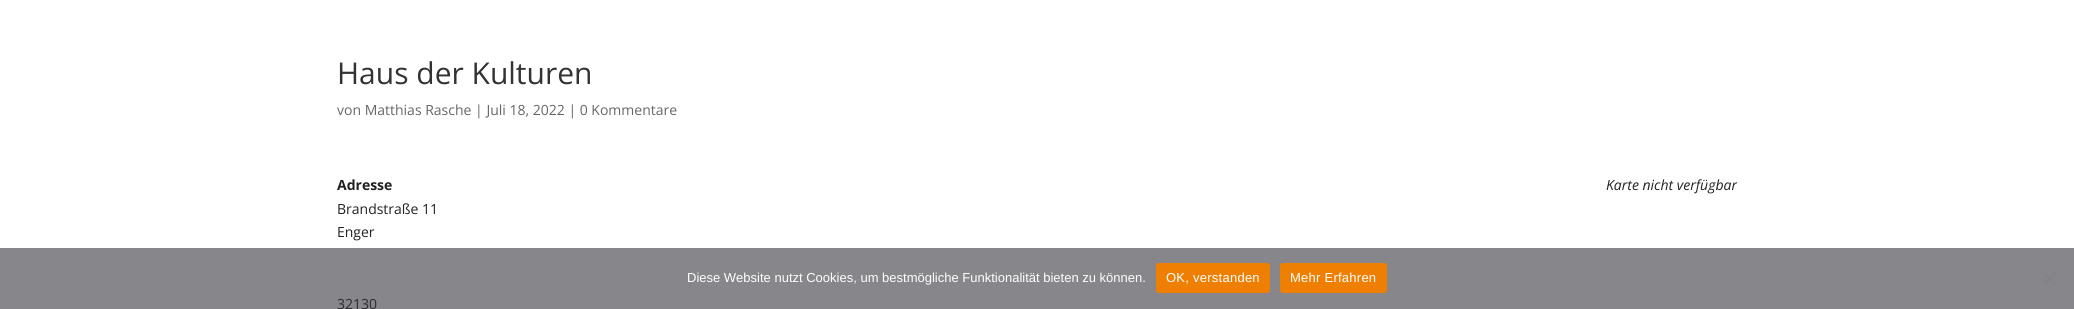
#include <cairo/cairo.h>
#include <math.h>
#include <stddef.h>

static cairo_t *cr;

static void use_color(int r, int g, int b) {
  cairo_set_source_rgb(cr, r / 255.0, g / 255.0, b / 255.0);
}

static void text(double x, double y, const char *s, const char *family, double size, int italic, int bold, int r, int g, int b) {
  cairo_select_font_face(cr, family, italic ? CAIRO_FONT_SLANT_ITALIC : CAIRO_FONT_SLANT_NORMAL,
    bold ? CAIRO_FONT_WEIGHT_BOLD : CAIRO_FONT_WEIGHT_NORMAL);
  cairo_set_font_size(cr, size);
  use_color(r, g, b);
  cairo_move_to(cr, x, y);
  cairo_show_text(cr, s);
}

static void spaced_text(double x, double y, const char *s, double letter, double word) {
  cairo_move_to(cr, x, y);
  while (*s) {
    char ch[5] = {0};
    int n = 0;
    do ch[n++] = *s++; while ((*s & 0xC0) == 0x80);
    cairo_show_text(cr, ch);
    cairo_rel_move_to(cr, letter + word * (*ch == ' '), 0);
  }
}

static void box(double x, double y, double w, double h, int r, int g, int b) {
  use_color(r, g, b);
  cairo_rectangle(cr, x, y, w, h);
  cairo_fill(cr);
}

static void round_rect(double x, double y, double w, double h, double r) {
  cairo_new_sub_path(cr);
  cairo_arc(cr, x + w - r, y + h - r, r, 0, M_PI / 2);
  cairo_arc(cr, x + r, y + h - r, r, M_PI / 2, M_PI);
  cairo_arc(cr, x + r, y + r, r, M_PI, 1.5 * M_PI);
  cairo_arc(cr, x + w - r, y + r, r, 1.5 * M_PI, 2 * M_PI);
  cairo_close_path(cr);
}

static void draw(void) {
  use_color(255, 255, 255);
  cairo_paint(cr);
  box(0, 248, 2074, 61, 134, 134, 139);
  use_color(239, 127, 3);
  round_rect(1156, 263, 114, 30, 3);
  cairo_fill(cr);
  round_rect(1280, 263, 107, 30, 3);
  cairo_fill(cr);
  use_color(131, 131, 133);
  cairo_new_path(cr);
  cairo_move_to(cr, 2054.5, 272.5);
  cairo_line_to(cr, 2056, 274);
  cairo_line_to(cr, 2045.5, 285);
  cairo_line_to(cr, 2044, 283.5);
  cairo_close_path(cr);
  cairo_fill(cr);
  cairo_new_path(cr);
  cairo_move_to(cr, 2044, 274);
  cairo_line_to(cr, 2045.5, 272.5);
  cairo_line_to(cr, 2056, 283.5);
  cairo_line_to(cr, 2054.5, 285);
  cairo_close_path(cr);
  cairo_fill(cr);
  text(337, 84, "Haus der Kulturen", "Open Sans", 30, 0, 0, 51, 51, 51);
  text(337, 115, "von Matthias Rasche | Juli 18, 2022 | 0 Kommentare", "Open Sans", 14, 0, 0, 102, 102, 102);
  text(337, 190, "Adresse", "Open Sans", 14, 0, 1, 33, 33, 33);
  text(337, 214, "Brandstraße 11", "Open Sans", 14, 0, 0, 33, 33, 33);
  text(337, 237, "Enger", "Open Sans", 14, 0, 0, 33, 33, 33);
  text(337, 309, "32130", "Open Sans", 14, 0, 0, 43, 43, 48);
  text(1606, 190, "Karte nicht verfügbar", "Open Sans", 14, 1, 0, 33, 33, 33);
  text(687, 282, "Diese Website nutzt Cookies, um bestmögliche Funktionalität bieten zu können.", "Liberation Sans", 13, 0, 0, 255, 255, 255);
  spaced_text(1166, 282, "OK, verstanden", 0.25, 0);
  spaced_text(1290, 282, "Mehr Erfahren", 0.25, 0);
}

int main(void) {
  cairo_surface_t *surface = cairo_image_surface_create(CAIRO_FORMAT_RGB24, 2074, 309);
  cr = cairo_create(surface);
  cairo_font_options_t *options = cairo_font_options_create();
  cairo_font_options_set_hint_metrics(options, CAIRO_HINT_METRICS_OFF);
  cairo_font_options_set_hint_style(options, CAIRO_HINT_STYLE_NONE);
  cairo_set_font_options(cr, options);
  cairo_set_miter_limit(cr, 4);
  draw();
  cairo_surface_write_to_png(surface, "out.png");
  cairo_font_options_destroy(options);
  cairo_destroy(cr);
  cairo_surface_destroy(surface);
  return 0;
}
